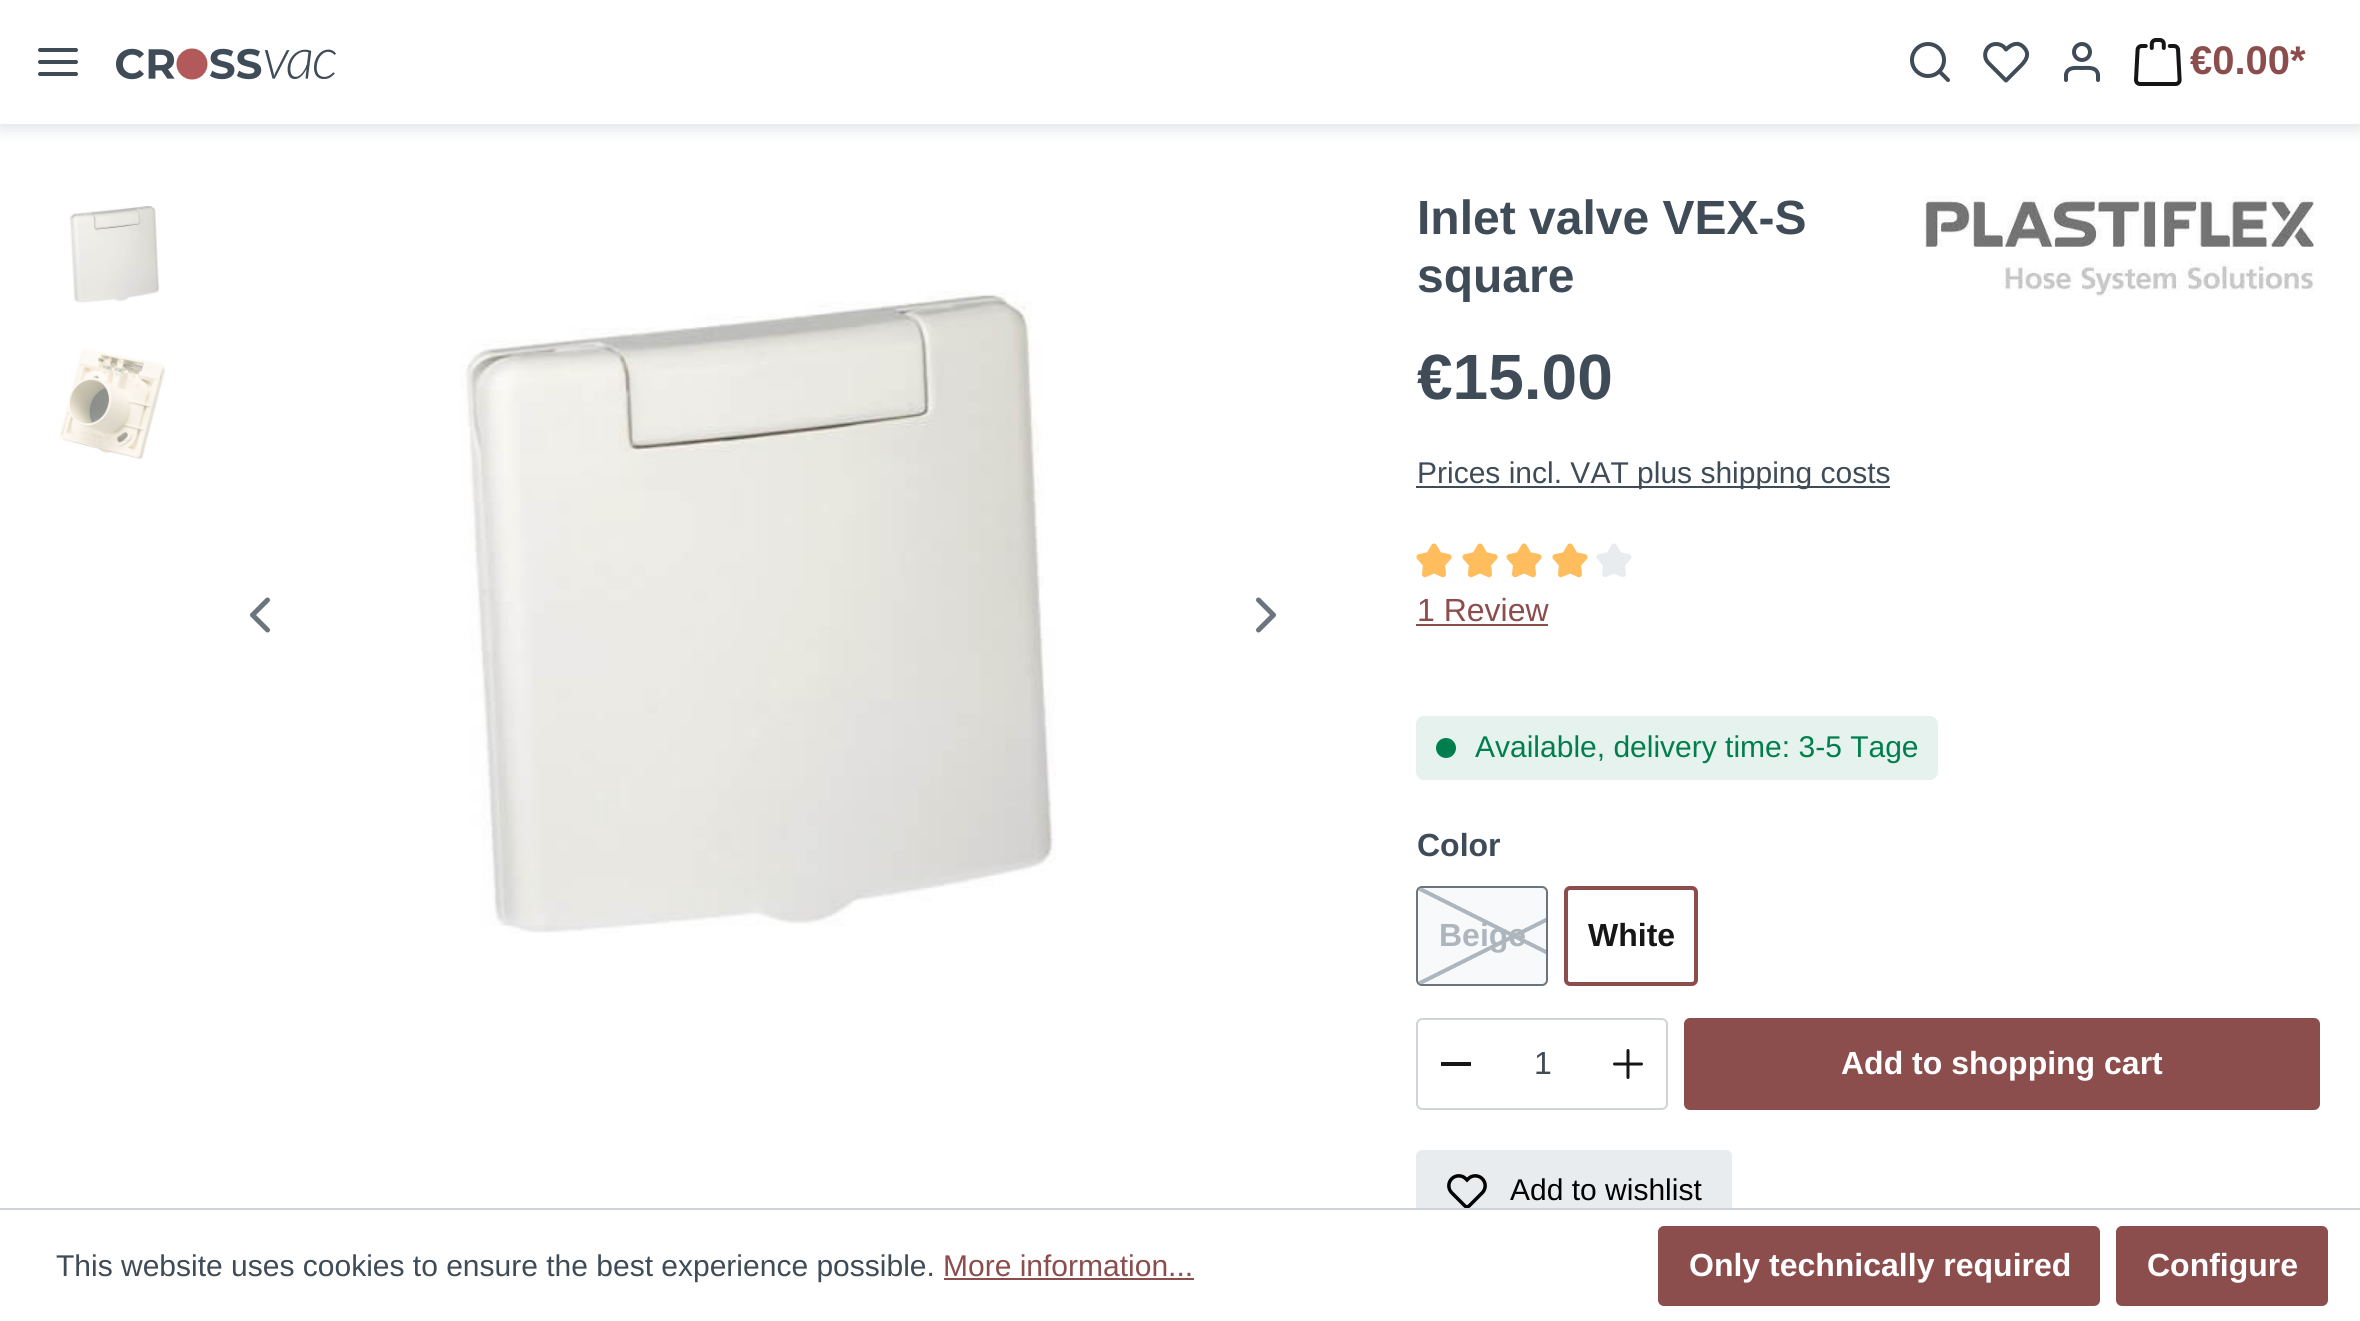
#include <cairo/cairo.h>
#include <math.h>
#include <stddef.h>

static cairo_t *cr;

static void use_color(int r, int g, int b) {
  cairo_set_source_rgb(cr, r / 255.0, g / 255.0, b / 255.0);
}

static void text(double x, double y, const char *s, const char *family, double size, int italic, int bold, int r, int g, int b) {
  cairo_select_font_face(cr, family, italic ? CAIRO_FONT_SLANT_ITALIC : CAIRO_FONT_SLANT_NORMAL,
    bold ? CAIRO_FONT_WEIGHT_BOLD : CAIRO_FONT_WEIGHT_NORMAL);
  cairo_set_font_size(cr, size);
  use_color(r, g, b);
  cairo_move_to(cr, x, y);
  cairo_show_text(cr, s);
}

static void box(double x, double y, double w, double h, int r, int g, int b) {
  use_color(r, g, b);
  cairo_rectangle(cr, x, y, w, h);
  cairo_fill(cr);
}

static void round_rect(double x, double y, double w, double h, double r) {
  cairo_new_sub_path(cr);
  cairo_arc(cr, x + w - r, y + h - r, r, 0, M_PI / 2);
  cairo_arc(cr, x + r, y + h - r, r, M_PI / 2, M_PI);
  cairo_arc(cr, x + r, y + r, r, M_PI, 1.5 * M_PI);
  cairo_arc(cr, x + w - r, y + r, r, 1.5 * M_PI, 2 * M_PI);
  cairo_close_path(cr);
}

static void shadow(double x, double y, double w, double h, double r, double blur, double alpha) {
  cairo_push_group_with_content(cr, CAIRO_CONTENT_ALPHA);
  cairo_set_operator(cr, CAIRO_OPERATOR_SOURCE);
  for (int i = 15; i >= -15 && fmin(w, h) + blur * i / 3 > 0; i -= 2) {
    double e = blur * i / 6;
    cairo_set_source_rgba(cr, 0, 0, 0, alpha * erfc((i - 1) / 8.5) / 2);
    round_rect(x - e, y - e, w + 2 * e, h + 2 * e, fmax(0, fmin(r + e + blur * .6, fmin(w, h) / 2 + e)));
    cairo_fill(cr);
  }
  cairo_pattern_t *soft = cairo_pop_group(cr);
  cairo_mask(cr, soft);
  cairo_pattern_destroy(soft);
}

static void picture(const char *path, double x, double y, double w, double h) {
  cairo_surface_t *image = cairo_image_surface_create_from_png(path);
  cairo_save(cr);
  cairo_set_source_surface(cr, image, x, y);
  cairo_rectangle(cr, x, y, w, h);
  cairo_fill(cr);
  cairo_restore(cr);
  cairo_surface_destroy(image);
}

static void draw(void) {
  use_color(255, 255, 255);
  cairo_paint(cr);
  use_color(187, 192, 199);
  shadow(0, 4, 2360, 124, 0, 8, 0.5);
  box(0, 0, 2360, 124, 255, 255, 255);
  cairo_new_path(cr);
  cairo_move_to(cr, 40, 62);
  cairo_line_to(cr, 76, 62);
  cairo_move_to(cr, 40, 50);
  cairo_line_to(cr, 76, 50);
  cairo_move_to(cr, 40, 74);
  cairo_line_to(cr, 76, 74);
  use_color(63, 76, 88);
  cairo_set_line_width(cr, 4);
  cairo_set_line_cap(cr, CAIRO_LINE_CAP_ROUND);
  cairo_set_line_join(cr, CAIRO_LINE_JOIN_ROUND);
  cairo_stroke(cr);
  picture("img_01.png", 116, 48, 220, 32);
  cairo_arc(cr, 1928, 60, 16, 0, 2 * M_PI);
  cairo_set_line_cap(cr, CAIRO_LINE_CAP_BUTT);
  cairo_set_line_join(cr, CAIRO_LINE_JOIN_MITER);
  cairo_stroke(cr);
  cairo_new_path(cr);
  cairo_move_to(cr, 1948, 80);
  cairo_line_to(cr, 1939.5, 71.5);
  cairo_set_line_cap(cr, CAIRO_LINE_CAP_ROUND);
  cairo_set_line_join(cr, CAIRO_LINE_JOIN_ROUND);
  cairo_stroke(cr);
  cairo_new_path(cr);
  cairo_move_to(cr, 2023.5, 47);
  cairo_curve_to(cr, 2017.5, 41, 2011, 44.5, 2006, 49.5);
  cairo_line_to(cr, 2004, 47);
  cairo_curve_to(cr, 1999.5, 43, 1992.5, 43, 1988.5, 47);
  cairo_curve_to(cr, 1984, 51.5, 1984, 58.5, 1988.5, 63);
  cairo_line_to(cr, 2006, 80.5);
  cairo_line_to(cr, 2016.5, 70);
  cairo_curve_to(cr, 2022.5, 64, 2032.5, 56, 2023.5, 47);
  cairo_close_path(cr);
  cairo_stroke(cr);
  cairo_new_path(cr);
  cairo_move_to(cr, 2098, 80);
  cairo_line_to(cr, 2098, 74.5);
  cairo_curve_to(cr, 2096.5, 66.5, 2088, 68, 2082, 68);
  cairo_curve_to(cr, 2076, 68, 2067.5, 66.5, 2066, 74.5);
  cairo_line_to(cr, 2066, 80);
  cairo_stroke(cr);
  cairo_arc(cr, 2082, 52, 8, 0, 2 * M_PI);
  cairo_set_line_cap(cr, CAIRO_LINE_CAP_BUTT);
  cairo_set_line_join(cr, CAIRO_LINE_JOIN_MITER);
  cairo_stroke(cr);
  picture("img_02.png", 2134, 38, 48, 48);
  picture("img_03.png", 69, 205, 91, 98);
  picture("img_04.png", 59, 349, 107, 110);
  picture("img_05.png", 460, 290, 596, 643);
  cairo_new_path(cr);
  cairo_move_to(cr, 267.5, 630);
  cairo_line_to(cr, 252.5, 615);
  cairo_line_to(cr, 267.5, 600);
  use_color(108, 117, 125);
  cairo_set_line_width(cr, 5);
  cairo_set_line_cap(cr, CAIRO_LINE_CAP_ROUND);
  cairo_set_line_join(cr, CAIRO_LINE_JOIN_ROUND);
  cairo_stroke(cr);
  cairo_new_path(cr);
  cairo_move_to(cr, 1258.5, 630);
  cairo_line_to(cr, 1273.5, 615);
  cairo_line_to(cr, 1258.5, 600);
  cairo_stroke(cr);
  picture("img_06.png", 1925, 196, 389, 101);
  box(1416, 486, 474, 2, 63, 76, 88);
  picture("img_07.png", 1416, 543, 36, 35);
  picture("img_07.png", 1462, 543, 36, 35);
  picture("img_07.png", 1506, 543, 36, 35);
  picture("img_07.png", 1552, 543, 36, 35);
  picture("img_08.png", 1596, 543, 36, 34);
  box(1416, 624, 132, 2, 140, 77, 77);
  use_color(230, 242, 237);
  round_rect(1416, 716, 522, 64, 8);
  cairo_fill(cr);
  use_color(0, 126, 78);
  cairo_arc(cr, 1446, 748, 10, 0, 2 * M_PI);
  cairo_fill(cr);
  use_color(248, 249, 250);
  round_rect(1417, 887, 130, 98, 5);
  cairo_fill_preserve(cr);
  use_color(108, 117, 125);
  cairo_set_line_width(cr, 2);
  cairo_set_line_cap(cr, CAIRO_LINE_CAP_BUTT);
  cairo_set_line_join(cr, CAIRO_LINE_JOIN_MITER);
  cairo_stroke(cr);
  cairo_save(cr);
  round_rect(1418, 888, 128, 96, 4);
  cairo_clip(cr);
  cairo_new_path(cr);
  cairo_move_to(cr, 1418, 888);
  cairo_line_to(cr, 1610, 984);
  use_color(173, 181, 189);
  cairo_set_line_width(cr, 4);
  cairo_set_line_cap(cr, CAIRO_LINE_CAP_ROUND);
  cairo_stroke(cr);
  cairo_new_path(cr);
  cairo_move_to(cr, 1418, 984);
  cairo_line_to(cr, 1610, 888);
  cairo_stroke(cr);
  cairo_restore(cr);
  round_rect(1566, 888, 130, 96, 4);
  use_color(140, 77, 77);
  cairo_set_line_width(cr, 4);
  cairo_stroke(cr);
  box(1492, 1018, 100, 2, 206, 212, 218);
  box(1492, 1108, 100, 2, 206, 212, 218);
  cairo_set_fill_rule(cr, CAIRO_FILL_RULE_EVEN_ODD);
  cairo_new_path(cr);
  cairo_move_to(cr, 1422, 1018);
  cairo_line_to(cr, 1494, 1018);
  cairo_line_to(cr, 1494, 1110);
  cairo_line_to(cr, 1422, 1110);
  cairo_curve_to(cr, 1419, 1110, 1416, 1107, 1416, 1104);
  cairo_line_to(cr, 1416, 1024);
  cairo_curve_to(cr, 1416, 1021, 1419, 1018, 1422, 1018);
  cairo_close_path(cr);
  cairo_move_to(cr, 1422, 1020);
  cairo_line_to(cr, 1494, 1020);
  cairo_line_to(cr, 1494, 1108);
  cairo_line_to(cr, 1422, 1108);
  cairo_curve_to(cr, 1420, 1108, 1418, 1106, 1418, 1104);
  cairo_line_to(cr, 1418, 1024);
  cairo_curve_to(cr, 1418, 1022, 1420, 1020, 1422, 1020);
  cairo_close_path(cr);
  cairo_fill(cr);
  box(1441, 1062, 30, 4, 22, 22, 22);
  use_color(206, 212, 218);
  cairo_new_path(cr);
  cairo_move_to(cr, 1590, 1018);
  cairo_line_to(cr, 1662, 1018);
  cairo_curve_to(cr, 1665, 1018, 1668, 1021, 1668, 1024);
  cairo_line_to(cr, 1668, 1104);
  cairo_curve_to(cr, 1668, 1107, 1665, 1110, 1662, 1110);
  cairo_line_to(cr, 1590, 1110);
  cairo_close_path(cr);
  cairo_move_to(cr, 1590, 1020);
  cairo_line_to(cr, 1662, 1020);
  cairo_curve_to(cr, 1664, 1020, 1666, 1022, 1666, 1024);
  cairo_line_to(cr, 1666, 1104);
  cairo_curve_to(cr, 1666, 1106, 1664, 1108, 1662, 1108);
  cairo_line_to(cr, 1590, 1108);
  cairo_close_path(cr);
  cairo_fill(cr);
  picture("img_09.png", 1613, 1049, 30, 30);
  use_color(140, 77, 77);
  round_rect(1685, 1019, 634, 90, 5);
  cairo_fill_preserve(cr);
  cairo_set_line_width(cr, 2);
  cairo_stroke(cr);
  use_color(233, 236, 239);
  round_rect(1417, 1151, 314, 78, 5);
  cairo_fill_preserve(cr);
  cairo_stroke(cr);
  picture("img_10.png", 1447, 1174, 40, 34);
  box(1416, 1210, 316, 20, 255, 255, 255);
  box(0, 1208, 2360, 2, 206, 212, 218);
  box(944, 1278, 250, 2, 140, 77, 77);
  round_rect(1659, 1227, 440, 78, 5);
  cairo_fill_preserve(cr);
  cairo_stroke(cr);
  round_rect(2117, 1227, 210, 78, 5);
  cairo_fill_preserve(cr);
  cairo_stroke(cr);
  text(2190, 74, "€0.00*", "Liberation Sans", 40, 0, 1, 140, 77, 77);
  text(1417, 234, "Inlet valve VEX-S", "Liberation Sans", 48, 0, 1, 63, 76, 88);
  text(1417, 292, "square", "Liberation Sans", 48, 0, 1, 63, 76, 88);
  text(1417, 399, "€15.00", "Liberation Sans", 64, 0, 1, 63, 76, 88);
  text(1417, 483, "Prices incl. VAT plus shipping costs", "Liberation Sans", 30, 0, 0, 63, 76, 88);
  text(1417, 621, "1 Review", "Liberation Sans", 32, 0, 0, 140, 77, 77);
  text(1475, 757, "Available, delivery time: 3-5 Tage", "Liberation Sans", 30, 0, 0, 0, 126, 78);
  text(1417, 856, "Color", "Liberation Sans", 32, 0, 1, 63, 76, 88);
  text(1439, 946, "Beige", "Liberation Sans", 32, 0, 1, 173, 181, 189);
  text(1588, 946, "White", "Liberation Sans", 32, 0, 1, 22, 22, 22);
  text(1534, 1074, "1", "Liberation Sans", 32, 0, 0, 63, 76, 88);
  text(1841, 1074, "Add to shopping cart", "Liberation Sans", 32, 0, 1, 255, 255, 255);
  text(1510, 1200, "Add to wishlist", "Liberation Sans", 30, 0, 0, 0, 0, 0);
  text(56, 1276, "This website uses cookies to ensure the best experience possible.", "Liberation Sans", 30, 0, 0, 63, 76, 88);
  text(943, 1276, "More information...", "Liberation Sans", 30, 0, 0, 140, 77, 77);
  text(1689, 1276, "Only technically required", "Liberation Sans", 32, 0, 1, 255, 255, 255);
  text(2147, 1276, "Configure", "Liberation Sans", 32, 0, 1, 255, 255, 255);
}

int main(void) {
  cairo_surface_t *surface = cairo_image_surface_create(CAIRO_FORMAT_RGB24, 2360, 1321);
  cr = cairo_create(surface);
  cairo_font_options_t *options = cairo_font_options_create();
  cairo_font_options_set_hint_metrics(options, CAIRO_HINT_METRICS_OFF);
  cairo_font_options_set_hint_style(options, CAIRO_HINT_STYLE_NONE);
  cairo_set_font_options(cr, options);
  cairo_set_miter_limit(cr, 4);
  draw();
  cairo_surface_write_to_png(surface, "out.png");
  cairo_font_options_destroy(options);
  cairo_destroy(cr);
  cairo_surface_destroy(surface);
  return 0;
}
